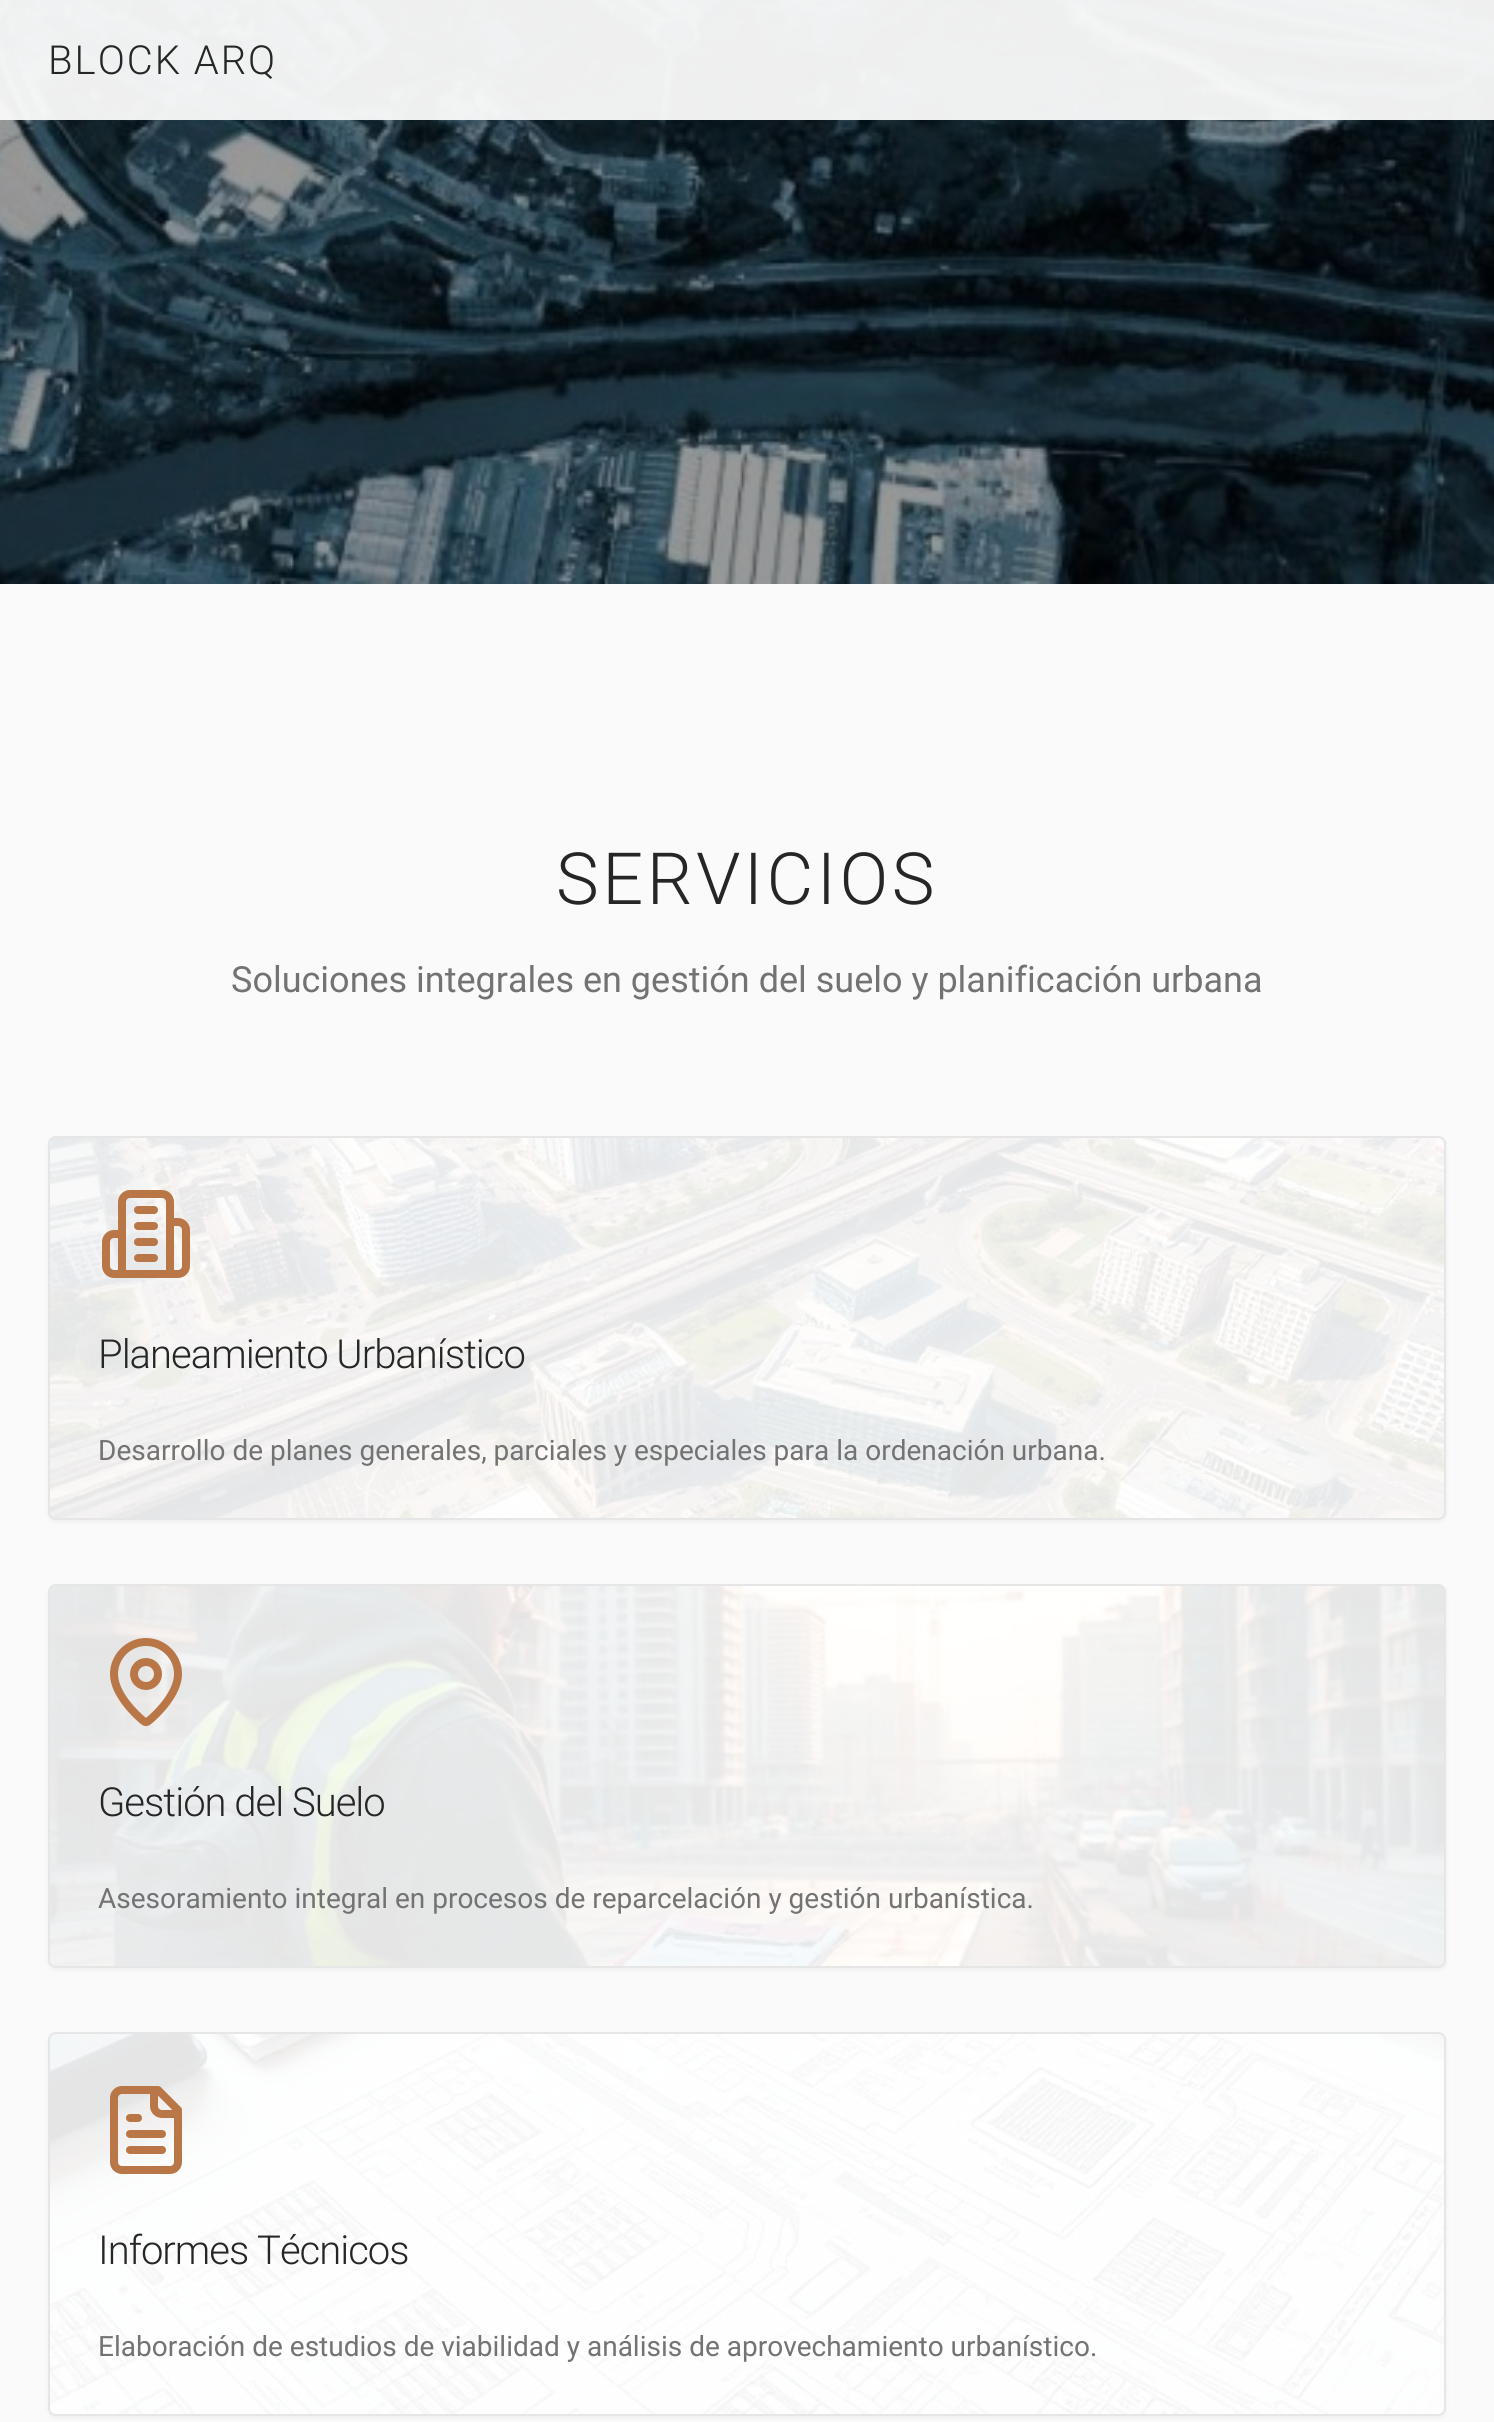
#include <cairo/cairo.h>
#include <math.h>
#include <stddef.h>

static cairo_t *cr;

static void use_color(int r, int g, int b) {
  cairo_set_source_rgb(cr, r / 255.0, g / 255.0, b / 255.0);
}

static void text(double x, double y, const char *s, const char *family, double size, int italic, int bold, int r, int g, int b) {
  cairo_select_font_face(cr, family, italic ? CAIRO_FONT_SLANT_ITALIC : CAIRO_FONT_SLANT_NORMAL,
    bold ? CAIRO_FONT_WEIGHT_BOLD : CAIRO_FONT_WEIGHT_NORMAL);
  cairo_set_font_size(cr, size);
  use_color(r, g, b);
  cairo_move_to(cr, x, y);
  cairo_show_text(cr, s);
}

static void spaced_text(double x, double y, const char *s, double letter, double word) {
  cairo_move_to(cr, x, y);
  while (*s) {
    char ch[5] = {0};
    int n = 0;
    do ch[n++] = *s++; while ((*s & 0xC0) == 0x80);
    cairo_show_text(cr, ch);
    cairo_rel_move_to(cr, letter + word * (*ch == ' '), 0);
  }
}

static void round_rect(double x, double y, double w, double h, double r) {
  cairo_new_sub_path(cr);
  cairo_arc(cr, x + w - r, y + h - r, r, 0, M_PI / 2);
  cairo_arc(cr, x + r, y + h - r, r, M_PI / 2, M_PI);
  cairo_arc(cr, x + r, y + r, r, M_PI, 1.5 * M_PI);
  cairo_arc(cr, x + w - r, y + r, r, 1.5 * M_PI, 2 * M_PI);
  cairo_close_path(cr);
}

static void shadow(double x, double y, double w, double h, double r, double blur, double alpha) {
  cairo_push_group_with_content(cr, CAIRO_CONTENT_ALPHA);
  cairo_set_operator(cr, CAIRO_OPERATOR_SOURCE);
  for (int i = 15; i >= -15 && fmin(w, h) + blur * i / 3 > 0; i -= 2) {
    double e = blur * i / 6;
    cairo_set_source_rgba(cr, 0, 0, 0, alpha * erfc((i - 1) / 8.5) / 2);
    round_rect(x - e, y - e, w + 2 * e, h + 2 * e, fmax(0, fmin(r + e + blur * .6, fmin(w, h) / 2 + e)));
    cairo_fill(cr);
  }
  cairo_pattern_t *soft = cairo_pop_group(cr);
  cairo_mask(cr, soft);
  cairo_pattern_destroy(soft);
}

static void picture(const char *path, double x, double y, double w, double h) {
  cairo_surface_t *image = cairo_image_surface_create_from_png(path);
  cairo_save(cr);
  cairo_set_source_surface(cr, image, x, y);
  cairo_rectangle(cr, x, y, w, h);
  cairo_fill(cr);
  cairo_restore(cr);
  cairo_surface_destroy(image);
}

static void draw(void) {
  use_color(250, 250, 250);
  cairo_paint(cr);
  picture("img_01.png", 0, 0, 1494, 584);
  cairo_set_source_rgba(cr, 0.98, 0.98, 0.98, 0.95);
  cairo_rectangle(cr, 0, 0, 1494, 120);
  cairo_fill(cr);
  use_color(0, 0, 0);
  shadow(48, 1138, 1398, 384, 8, 2, 0.05);
  use_color(255, 255, 255);
  round_rect(49, 1137, 1396, 382, 7);
  cairo_fill_preserve(cr);
  use_color(230, 230, 230);
  cairo_stroke(cr);
  picture("img_02.png", 50, 1138, 1394, 380);
  picture("img_03.png", 102, 1190, 88, 88);
  use_color(0, 0, 0);
  shadow(48, 1586, 1398, 384, 8, 2, 0.05);
  use_color(255, 255, 255);
  round_rect(49, 1585, 1396, 382, 7);
  cairo_fill_preserve(cr);
  use_color(230, 230, 230);
  cairo_stroke(cr);
  picture("img_04.png", 50, 1586, 1394, 380);
  cairo_new_path(cr);
  cairo_move_to(cr, 178, 1674);
  cairo_curve_to(cr, 178, 1694, 156, 1715, 148.5, 1721);
  cairo_curve_to(cr, 147, 1722.5, 145, 1722.5, 143.5, 1721);
  cairo_curve_to(cr, 136, 1715, 114, 1694, 114, 1674);
  cairo_curve_to(cr, 114, 1656.5, 128.5, 1642, 146, 1642);
  cairo_curve_to(cr, 163.5, 1642, 178, 1656.5, 178, 1674);
  use_color(185, 118, 70);
  cairo_set_line_width(cr, 8);
  cairo_set_line_cap(cr, CAIRO_LINE_CAP_ROUND);
  cairo_set_line_join(cr, CAIRO_LINE_JOIN_ROUND);
  cairo_stroke(cr);
  cairo_arc(cr, 146, 1674, 12, 0, 2 * M_PI);
  cairo_set_line_cap(cr, CAIRO_LINE_CAP_BUTT);
  cairo_set_line_join(cr, CAIRO_LINE_JOIN_MITER);
  cairo_stroke(cr);
  use_color(0, 0, 0);
  shadow(48, 2034, 1398, 384, 8, 2, 0.05);
  use_color(255, 255, 255);
  round_rect(49, 2033, 1396, 382, 7);
  cairo_fill_preserve(cr);
  use_color(230, 230, 230);
  cairo_set_line_width(cr, 2);
  cairo_stroke(cr);
  picture("img_05.png", 50, 2034, 1394, 380);
  cairo_new_path(cr);
  cairo_move_to(cr, 158, 2090);
  cairo_line_to(cr, 122, 2090);
  cairo_curve_to(cr, 117.5, 2090, 114, 2093.5, 114, 2098);
  cairo_line_to(cr, 114, 2162);
  cairo_curve_to(cr, 114, 2166.5, 117.5, 2170, 122, 2170);
  cairo_line_to(cr, 170, 2170);
  cairo_curve_to(cr, 174.5, 2170, 178, 2166.5, 178, 2162);
  cairo_line_to(cr, 178, 2110);
  cairo_close_path(cr);
  use_color(185, 118, 70);
  cairo_set_line_width(cr, 8);
  cairo_set_line_cap(cr, CAIRO_LINE_CAP_ROUND);
  cairo_set_line_join(cr, CAIRO_LINE_JOIN_ROUND);
  cairo_stroke(cr);
  cairo_new_path(cr);
  cairo_move_to(cr, 154, 2090);
  cairo_line_to(cr, 154, 2106);
  cairo_curve_to(cr, 154, 2110.5, 157.5, 2114, 162, 2114);
  cairo_line_to(cr, 178, 2114);
  cairo_move_to(cr, 138, 2118);
  cairo_line_to(cr, 130, 2118);
  cairo_move_to(cr, 162, 2134);
  cairo_line_to(cr, 130, 2134);
  cairo_stroke(cr);
  cairo_new_path(cr);
  cairo_move_to(cr, 162, 2150);
  cairo_line_to(cr, 130, 2150);
  cairo_stroke(cr);
  cairo_select_font_face(cr, "Roboto Light", CAIRO_FONT_SLANT_NORMAL, CAIRO_FONT_WEIGHT_NORMAL);
  cairo_set_font_size(cr, 40);
  use_color(38, 38, 38);
  spaced_text(48, 74, "BLOCK ARQ", 2, 0);
  cairo_set_font_size(cr, 72);
  spaced_text(556, 904, "SERVICIOS", 3.5, 0);
  text(231, 992, "Soluciones integrales en gestión del suelo y planificación urbana", "Roboto", 36, 0, 0, 115, 115, 115);
  cairo_select_font_face(cr, "Roboto Light", CAIRO_FONT_SLANT_NORMAL, CAIRO_FONT_WEIGHT_NORMAL);
  cairo_set_font_size(cr, 40);
  use_color(38, 38, 38);
  spaced_text(98, 1368, "Planeamiento Urbanístico", -1, 0);
  text(98, 1460, "Desarrollo de planes generales, parciales y especiales para la ordenación urbana.", "Roboto", 28, 0, 0, 115, 115, 115);
  cairo_select_font_face(cr, "Roboto Light", CAIRO_FONT_SLANT_NORMAL, CAIRO_FONT_WEIGHT_NORMAL);
  cairo_set_font_size(cr, 40);
  use_color(38, 38, 38);
  spaced_text(98, 1816, "Gestión del Suelo", -1, 0);
  text(98, 1908, "Asesoramiento integral en procesos de reparcelación y gestión urbanística.", "Roboto", 28, 0, 0, 115, 115, 115);
  cairo_select_font_face(cr, "Roboto Light", CAIRO_FONT_SLANT_NORMAL, CAIRO_FONT_WEIGHT_NORMAL);
  cairo_set_font_size(cr, 40);
  use_color(38, 38, 38);
  spaced_text(98, 2264, "Informes Técnicos", -1, 0);
  text(98, 2356, "Elaboración de estudios de viabilidad y análisis de aprovechamiento urbanístico.", "Roboto", 28, 0, 0, 115, 115, 115);
}

int main(void) {
  cairo_surface_t *surface = cairo_image_surface_create(CAIRO_FORMAT_RGB24, 1494, 2422);
  cr = cairo_create(surface);
  cairo_font_options_t *options = cairo_font_options_create();
  cairo_font_options_set_hint_metrics(options, CAIRO_HINT_METRICS_OFF);
  cairo_font_options_set_hint_style(options, CAIRO_HINT_STYLE_NONE);
  cairo_set_font_options(cr, options);
  cairo_set_miter_limit(cr, 4);
  draw();
  cairo_surface_write_to_png(surface, "out.png");
  cairo_font_options_destroy(options);
  cairo_destroy(cr);
  cairo_surface_destroy(surface);
  return 0;
}
